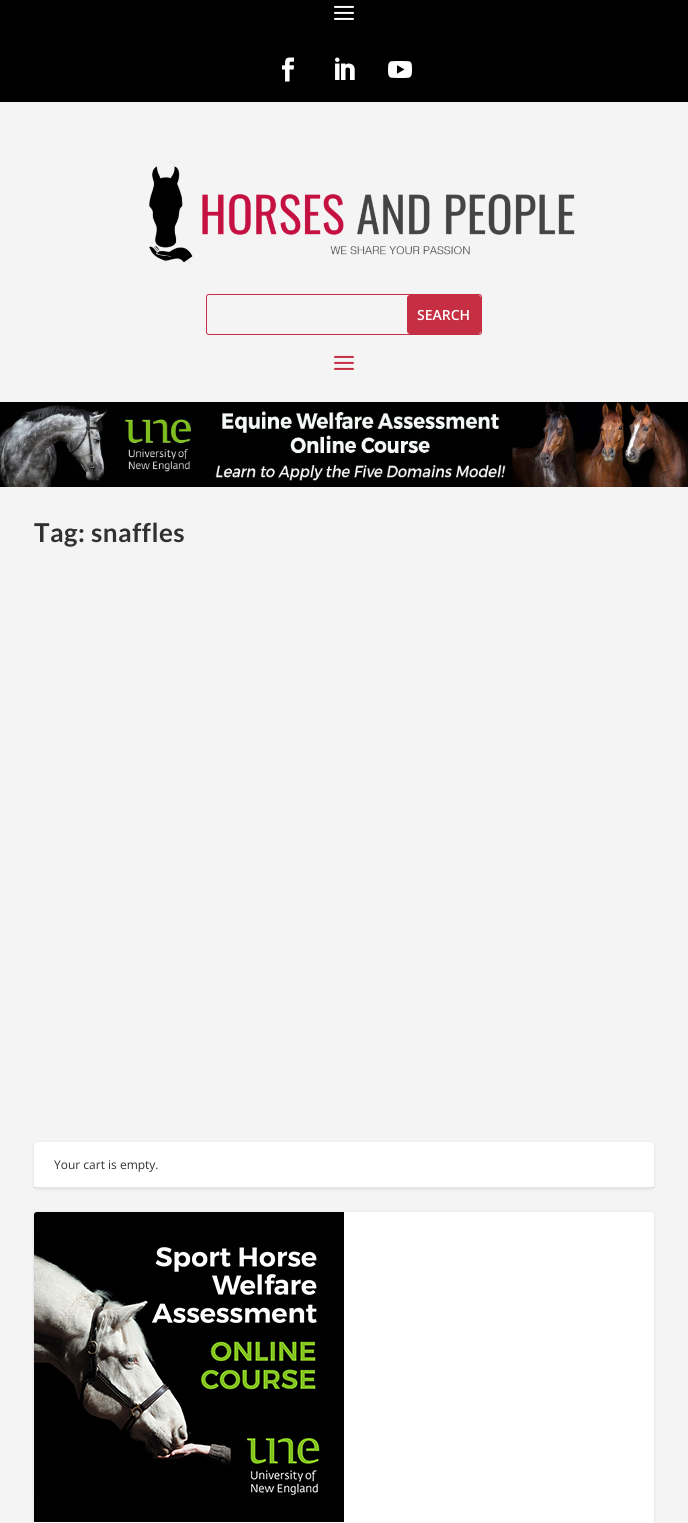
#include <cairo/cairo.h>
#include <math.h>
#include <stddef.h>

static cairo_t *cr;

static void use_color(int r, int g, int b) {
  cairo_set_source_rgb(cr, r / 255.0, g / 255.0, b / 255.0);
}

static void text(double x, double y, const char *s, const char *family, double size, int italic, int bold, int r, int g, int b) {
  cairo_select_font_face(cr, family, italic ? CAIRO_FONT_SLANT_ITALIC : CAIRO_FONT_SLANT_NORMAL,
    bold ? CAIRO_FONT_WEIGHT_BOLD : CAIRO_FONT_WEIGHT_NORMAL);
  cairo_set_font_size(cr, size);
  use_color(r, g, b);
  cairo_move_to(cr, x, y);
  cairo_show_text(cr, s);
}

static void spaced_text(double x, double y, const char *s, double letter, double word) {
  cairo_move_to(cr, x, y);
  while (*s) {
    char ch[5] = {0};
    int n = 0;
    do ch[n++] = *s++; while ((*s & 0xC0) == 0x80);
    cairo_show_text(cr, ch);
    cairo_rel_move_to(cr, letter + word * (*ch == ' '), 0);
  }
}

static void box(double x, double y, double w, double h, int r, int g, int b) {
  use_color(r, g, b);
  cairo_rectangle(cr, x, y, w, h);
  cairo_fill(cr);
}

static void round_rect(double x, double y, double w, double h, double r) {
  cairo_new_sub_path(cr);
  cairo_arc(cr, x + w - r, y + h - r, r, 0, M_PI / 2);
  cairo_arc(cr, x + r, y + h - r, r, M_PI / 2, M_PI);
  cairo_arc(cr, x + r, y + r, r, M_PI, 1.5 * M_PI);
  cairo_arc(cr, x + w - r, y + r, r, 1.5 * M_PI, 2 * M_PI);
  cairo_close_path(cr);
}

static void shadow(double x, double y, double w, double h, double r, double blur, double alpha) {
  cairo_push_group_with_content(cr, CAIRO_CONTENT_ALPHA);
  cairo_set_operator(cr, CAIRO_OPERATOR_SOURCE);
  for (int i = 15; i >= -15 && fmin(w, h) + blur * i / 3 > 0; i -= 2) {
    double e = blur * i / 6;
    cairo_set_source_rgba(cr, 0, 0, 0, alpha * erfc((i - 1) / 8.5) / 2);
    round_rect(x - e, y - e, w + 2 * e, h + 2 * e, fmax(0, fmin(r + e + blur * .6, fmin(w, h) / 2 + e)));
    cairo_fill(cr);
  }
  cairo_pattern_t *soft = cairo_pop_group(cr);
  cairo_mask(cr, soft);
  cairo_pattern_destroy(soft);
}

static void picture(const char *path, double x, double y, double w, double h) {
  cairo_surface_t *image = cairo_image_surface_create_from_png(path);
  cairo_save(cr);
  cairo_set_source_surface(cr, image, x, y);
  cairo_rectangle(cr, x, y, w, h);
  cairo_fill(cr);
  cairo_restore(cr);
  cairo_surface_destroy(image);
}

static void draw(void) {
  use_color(244, 244, 244);
  cairo_paint(cr);
  box(0, 0, 688, 102, 0, 0, 0);
  picture("img_01.png", 334, 5, 20, 15);
  picture("img_02.png", 282, 57, 13, 25);
  picture("img_03.png", 335, 57, 20, 23);
  picture("img_04.png", 388, 61, 24, 17);
  picture("img_05.png", 141, 161, 434, 104);
  round_rect(206.5, 294.5, 275, 40, 2.5);
  use_color(198, 47, 67);
  cairo_set_line_width(cr, 1);
  cairo_stroke(cr);
  cairo_save(cr);
  round_rect(207, 295, 274, 39, 2);
  cairo_clip(cr);
  round_rect(407, 295, 74, 39, 3);
  cairo_fill(cr);
  cairo_restore(cr);
  picture("img_06.png", 334, 355, 20, 15);
  picture("img_07.png", 0, 402, 688, 85);
  use_color(0, 0, 0);
  shadow(34, 1143, 620, 46, 3, 1.5, 0.1);
  use_color(255, 255, 255);
  round_rect(34, 1142, 620, 46, 3);
  cairo_fill(cr);
  cairo_set_source_rgba(cr, 0, 0, 0, 0.1);
  cairo_rectangle(cr, 34, 1187, 620, 1);
  cairo_fill(cr);
  use_color(0, 0, 0);
  shadow(34, 1213, 620, 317, 3, 1.5, 0.1);
  use_color(255, 255, 255);
  round_rect(34, 1212, 620, 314, 3);
  cairo_fill(cr);
  picture("img_08.png", 34, 1212, 310, 310);
  text(417, 320, "SEARCH", "Open Sans SemiBold", 14, 0, 0, 255, 255, 255);
  cairo_select_font_face(cr, "Lato", CAIRO_FONT_SLANT_NORMAL, CAIRO_FONT_WEIGHT_BOLD);
  cairo_set_font_size(cr, 26);
  use_color(49, 49, 49);
  spaced_text(34, 542, "Tag: snaffles", 0.5, 0);
  text(54, 1169, "Your cart is empty.", "Open Sans", 12, 0, 0, 49, 49, 49);
}

int main(void) {
  cairo_surface_t *surface = cairo_image_surface_create(CAIRO_FORMAT_RGB24, 688, 1523);
  cr = cairo_create(surface);
  cairo_font_options_t *options = cairo_font_options_create();
  cairo_font_options_set_hint_metrics(options, CAIRO_HINT_METRICS_OFF);
  cairo_font_options_set_hint_style(options, CAIRO_HINT_STYLE_NONE);
  cairo_set_font_options(cr, options);
  cairo_set_miter_limit(cr, 4);
  draw();
  cairo_surface_write_to_png(surface, "out.png");
  cairo_font_options_destroy(options);
  cairo_destroy(cr);
  cairo_surface_destroy(surface);
  return 0;
}
